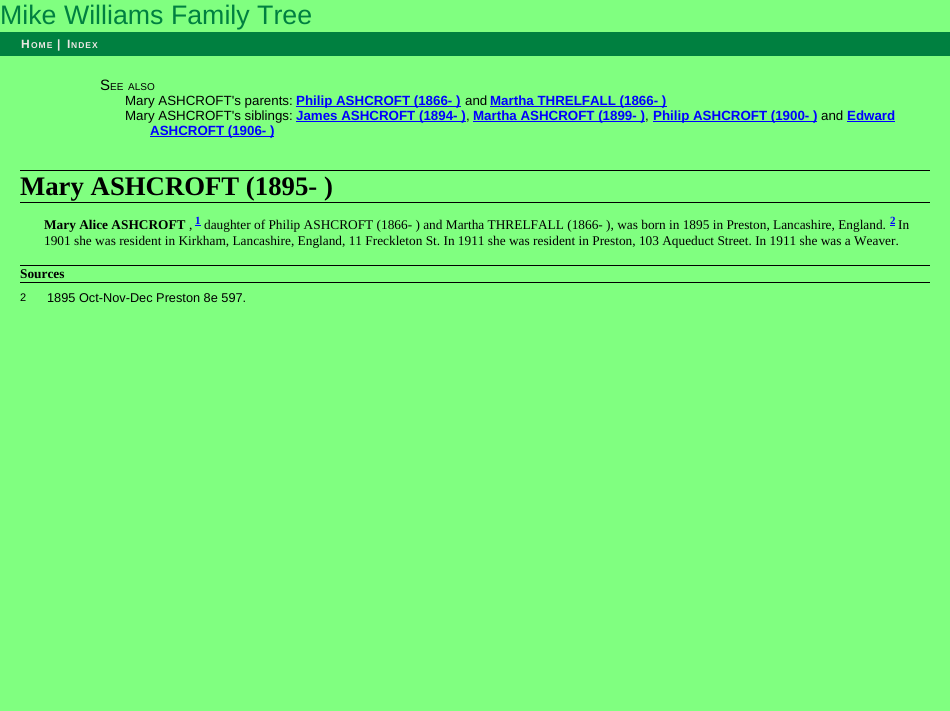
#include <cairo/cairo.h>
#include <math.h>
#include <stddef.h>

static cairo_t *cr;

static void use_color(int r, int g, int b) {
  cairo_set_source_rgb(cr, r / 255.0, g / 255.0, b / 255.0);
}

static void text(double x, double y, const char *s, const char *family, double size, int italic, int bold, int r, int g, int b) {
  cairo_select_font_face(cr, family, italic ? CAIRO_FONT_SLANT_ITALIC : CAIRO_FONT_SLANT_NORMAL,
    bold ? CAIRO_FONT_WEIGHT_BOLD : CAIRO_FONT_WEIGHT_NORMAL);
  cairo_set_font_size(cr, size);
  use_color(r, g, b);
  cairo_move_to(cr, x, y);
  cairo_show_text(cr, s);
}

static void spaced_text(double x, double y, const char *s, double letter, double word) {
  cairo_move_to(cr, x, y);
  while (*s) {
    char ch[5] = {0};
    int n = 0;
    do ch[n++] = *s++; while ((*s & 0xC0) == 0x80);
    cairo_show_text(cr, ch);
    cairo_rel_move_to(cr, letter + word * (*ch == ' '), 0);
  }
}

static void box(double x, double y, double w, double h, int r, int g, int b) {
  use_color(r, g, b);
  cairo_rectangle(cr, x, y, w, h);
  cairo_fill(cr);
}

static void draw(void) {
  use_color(128, 255, 128);
  cairo_paint(cr);
  box(0, 32, 950, 24, 0, 128, 64);
  box(296, 106, 165, 1, 0, 0, 255);
  box(490, 106, 177, 1, 0, 0, 255);
  box(296, 121, 170, 1, 0, 0, 255);
  box(473, 121, 172, 1, 0, 0, 255);
  box(653, 121, 164, 1, 0, 0, 255);
  box(847, 121, 48, 1, 0, 0, 255);
  box(150, 136, 124, 1, 0, 0, 255);
  box(20, 170, 910, 1, 0, 0, 0);
  box(20, 202, 910, 1, 0, 0, 0);
  box(195, 225, 6, 1, 0, 0, 255);
  box(890, 225, 5, 1, 0, 0, 255);
  box(20, 265, 910, 1, 0, 0, 0);
  box(20, 282, 910, 1, 0, 0, 0);
  text(0, 24, "Mike Williams Family Tree", "Liberation Sans", 26.75, 0, 0, 0, 128, 64);
  cairo_select_font_face(cr, "Liberation Sans", CAIRO_FONT_SLANT_NORMAL, CAIRO_FONT_WEIGHT_BOLD);
  cairo_set_font_size(cr, 12);
  use_color(236, 231, 227);
  spaced_text(21, 48, "H", 1, 0);
  cairo_set_font_size(cr, 8.5);
  spaced_text(31, 48, "OME", 1, 0);
  cairo_set_font_size(cr, 12);
  spaced_text(57, 48, "|", 1, 0);
  spaced_text(67, 48, "I", 1, 0);
  cairo_set_font_size(cr, 8.5);
  spaced_text(71, 48, "NDEX", 1, 0);
  text(100, 90, "S", "Liberation Sans", 15, 0, 0, 0, 0, 0);
  text(110, 90, "EE", "Liberation Sans", 10, 0, 0, 0, 0, 0);
  text(128, 90, "ALSO", "Liberation Sans", 10, 0, 0, 0, 0, 0);
  text(125, 105, "Mary ASHCROFT's parents:", "Liberation Sans", 13.33, 0, 0, 0, 0, 0);
  text(296, 105, "Philip ASHCROFT (1866- )", "Liberation Sans", 13.33, 0, 1, 0, 0, 255);
  text(465, 105, "and", "Liberation Sans", 13.33, 0, 0, 0, 0, 0);
  text(490, 105, "Martha THRELFALL (1866- )", "Liberation Sans", 13.33, 0, 1, 0, 0, 255);
  text(125, 120, "Mary ASHCROFT's siblings:", "Liberation Sans", 13.33, 0, 0, 0, 0, 0);
  text(296, 120, "James ASHCROFT (1894- )", "Liberation Sans", 13.33, 0, 1, 0, 0, 255);
  text(466, 120, ",", "Liberation Sans", 13.33, 0, 0, 0, 0, 0);
  text(473, 120, "Martha ASHCROFT (1899- )", "Liberation Sans", 13.33, 0, 1, 0, 0, 255);
  text(645, 120, ",", "Liberation Sans", 13.33, 0, 0, 0, 0, 0);
  text(653, 120, "Philip ASHCROFT (1900- )", "Liberation Sans", 13.33, 0, 1, 0, 0, 255);
  text(821, 120, "and", "Liberation Sans", 13.33, 0, 0, 0, 0, 0);
  text(847, 120, "Edward", "Liberation Sans", 13.33, 0, 1, 0, 0, 255);
  text(150, 135, "ASHCROFT (1906- )", "Liberation Sans", 13.33, 0, 1, 0, 0, 255);
  text(20, 195, "Mary ASHCROFT (1895- )", "Liberation Serif", 26.75, 0, 1, 0, 0, 0);
  text(44, 229, "Mary Alice ASHCROFT", "Liberation Serif", 13.33, 0, 1, 0, 0, 0);
  text(195, 224, "1", "Liberation Serif", 11, 0, 1, 0, 0, 255);
  text(204, 229, "daughter of Philip ASHCROFT (1866- ) and Martha THRELFALL (1866- ), was born in 1895 in Preston, Lancashire, England.", "Liberation Serif", 13.33, 0, 0, 0, 0, 0);
  text(890, 224, "2", "Liberation Serif", 11, 0, 1, 0, 0, 255);
  text(898, 229, "In", "Liberation Serif", 13.33, 0, 0, 0, 0, 0);
  text(189, 229, ",", "Liberation Serif", 13.33, 0, 0, 0, 0, 0);
  text(44, 245, "1901 she was resident in Kirkham, Lancashire, England, 11 Freckleton St. In 1911 she was resident in Preston, 103 Aqueduct Street. In 1911 she was a Weaver.", "Liberation Serif", 13.33, 0, 0, 0, 0, 0);
  text(20, 278, "Sources", "Liberation Serif", 13.33, 0, 1, 0, 0, 0);
  text(20, 301, "2", "Liberation Sans", 11, 0, 0, 0, 0, 0);
  text(47, 302, "1895 Oct-Nov-Dec Preston 8e 597.", "Liberation Sans", 12.75, 0, 0, 0, 0, 0);
}

int main(void) {
  cairo_surface_t *surface = cairo_image_surface_create(CAIRO_FORMAT_RGB24, 950, 711);
  cr = cairo_create(surface);
  cairo_font_options_t *options = cairo_font_options_create();
  cairo_font_options_set_hint_metrics(options, CAIRO_HINT_METRICS_OFF);
  cairo_font_options_set_hint_style(options, CAIRO_HINT_STYLE_NONE);
  cairo_set_font_options(cr, options);
  cairo_set_miter_limit(cr, 4);
  draw();
  cairo_surface_write_to_png(surface, "out.png");
  cairo_font_options_destroy(options);
  cairo_destroy(cr);
  cairo_surface_destroy(surface);
  return 0;
}
